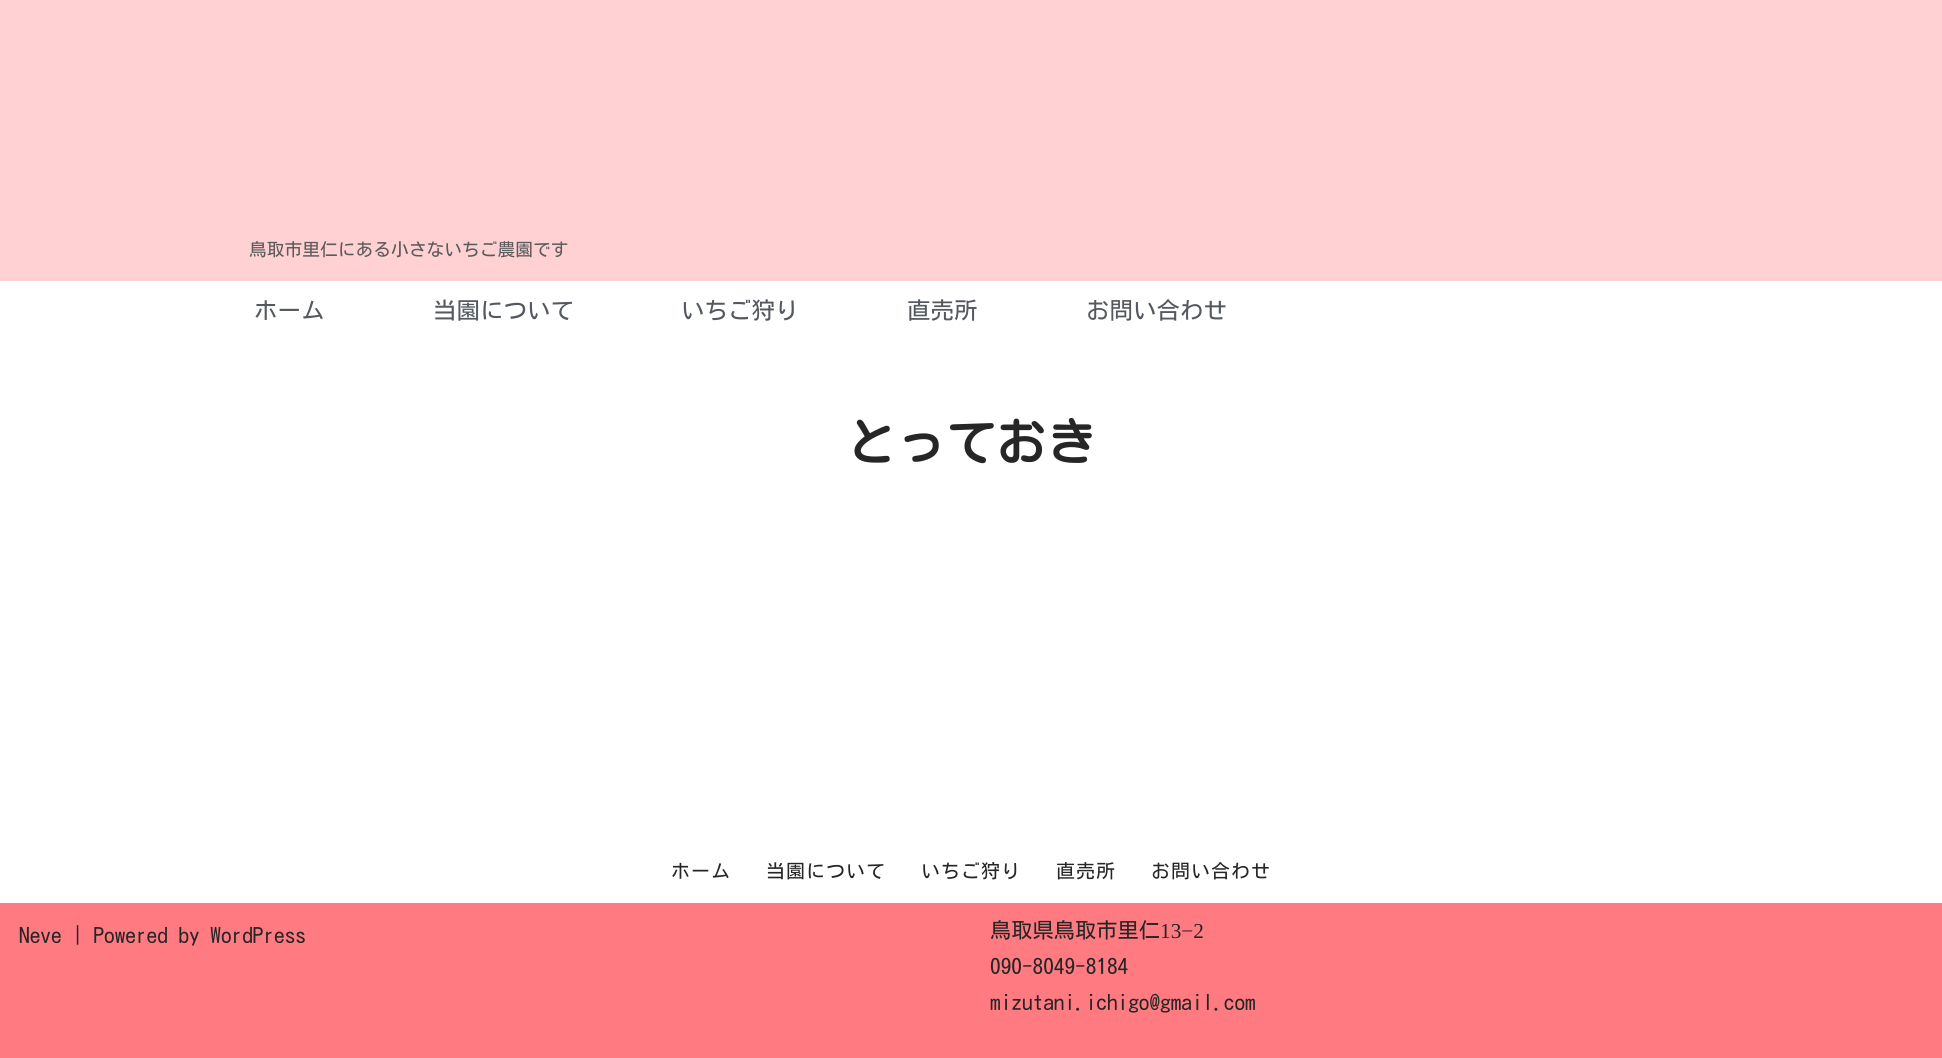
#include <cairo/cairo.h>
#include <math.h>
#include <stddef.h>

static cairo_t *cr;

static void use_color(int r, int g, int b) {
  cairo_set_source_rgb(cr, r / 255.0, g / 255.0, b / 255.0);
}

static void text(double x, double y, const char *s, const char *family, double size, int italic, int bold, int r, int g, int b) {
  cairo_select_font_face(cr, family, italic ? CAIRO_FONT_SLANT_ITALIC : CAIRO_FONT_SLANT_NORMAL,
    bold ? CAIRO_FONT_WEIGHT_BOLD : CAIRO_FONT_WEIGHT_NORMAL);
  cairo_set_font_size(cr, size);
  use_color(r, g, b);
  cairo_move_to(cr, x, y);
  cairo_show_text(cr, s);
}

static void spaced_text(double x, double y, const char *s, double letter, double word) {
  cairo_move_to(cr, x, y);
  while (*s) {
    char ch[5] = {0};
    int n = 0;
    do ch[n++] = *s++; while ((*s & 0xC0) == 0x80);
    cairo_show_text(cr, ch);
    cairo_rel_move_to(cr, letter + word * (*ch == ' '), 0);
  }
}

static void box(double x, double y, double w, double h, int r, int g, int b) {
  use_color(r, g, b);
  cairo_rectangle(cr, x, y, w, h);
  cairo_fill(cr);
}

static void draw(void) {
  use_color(255, 255, 255);
  cairo_paint(cr);
  box(0, 0, 1942, 281, 255, 209, 211);
  box(0, 903, 1942, 155, 255, 123, 129);
  text(249, 256, "鳥取市里仁にある小さないちご農園です", "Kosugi", 17.75, 0, 0, 91, 91, 91);
  text(254, 319, "ホーム", "Kosugi", 23.5, 0, 0, 84, 89, 95);
  text(433, 319, "当園について", "Kosugi", 23.5, 0, 0, 84, 89, 95);
  text(681, 319, "いちご狩り", "Kosugi", 23.5, 0, 0, 84, 89, 95);
  text(907, 319, "直売所", "Kosugi", 23.5, 0, 0, 84, 89, 95);
  text(1086, 319, "お問い合わせ", "Kosugi", 23.5, 0, 0, 84, 89, 95);
  text(846, 461, "とっておき", "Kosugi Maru", 50, 0, 1, 39, 38, 38);
  cairo_select_font_face(cr, "Kosugi", CAIRO_FONT_SLANT_NORMAL, CAIRO_FONT_WEIGHT_NORMAL);
  cairo_set_font_size(cr, 19);
  spaced_text(671, 878, "ホーム", 1, 0);
  spaced_text(766, 878, "当園について", 1, 0);
  spaced_text(921, 878, "いちご狩り", 1, 0);
  spaced_text(1056, 878, "直売所", 1, 0);
  spaced_text(1151, 878, "お問い合わせ", 1, 0);
  text(19, 943, "Neve | Powered by WordPress", "Kosugi", 21.25, 0, 0, 39, 38, 38);
  text(990, 938, "鳥取県鳥取市里仁", "Kosugi", 21.25, 0, 0, 39, 38, 38);
  text(1160, 938, "13−2", "Liberation Serif", 21.25, 0, 0, 39, 38, 38);
  text(990, 974, "090-8049-8184", "Kosugi", 21.25, 0, 0, 39, 38, 38);
  text(990, 1010, "mizutani.ichigo@gmail.com", "Kosugi", 21.25, 0, 0, 39, 38, 38);
}

int main(void) {
  cairo_surface_t *surface = cairo_image_surface_create(CAIRO_FORMAT_RGB24, 1942, 1058);
  cr = cairo_create(surface);
  cairo_font_options_t *options = cairo_font_options_create();
  cairo_font_options_set_hint_metrics(options, CAIRO_HINT_METRICS_OFF);
  cairo_font_options_set_hint_style(options, CAIRO_HINT_STYLE_NONE);
  cairo_set_font_options(cr, options);
  cairo_set_miter_limit(cr, 4);
  draw();
  cairo_surface_write_to_png(surface, "out.png");
  cairo_font_options_destroy(options);
  cairo_destroy(cr);
  cairo_surface_destroy(surface);
  return 0;
}
